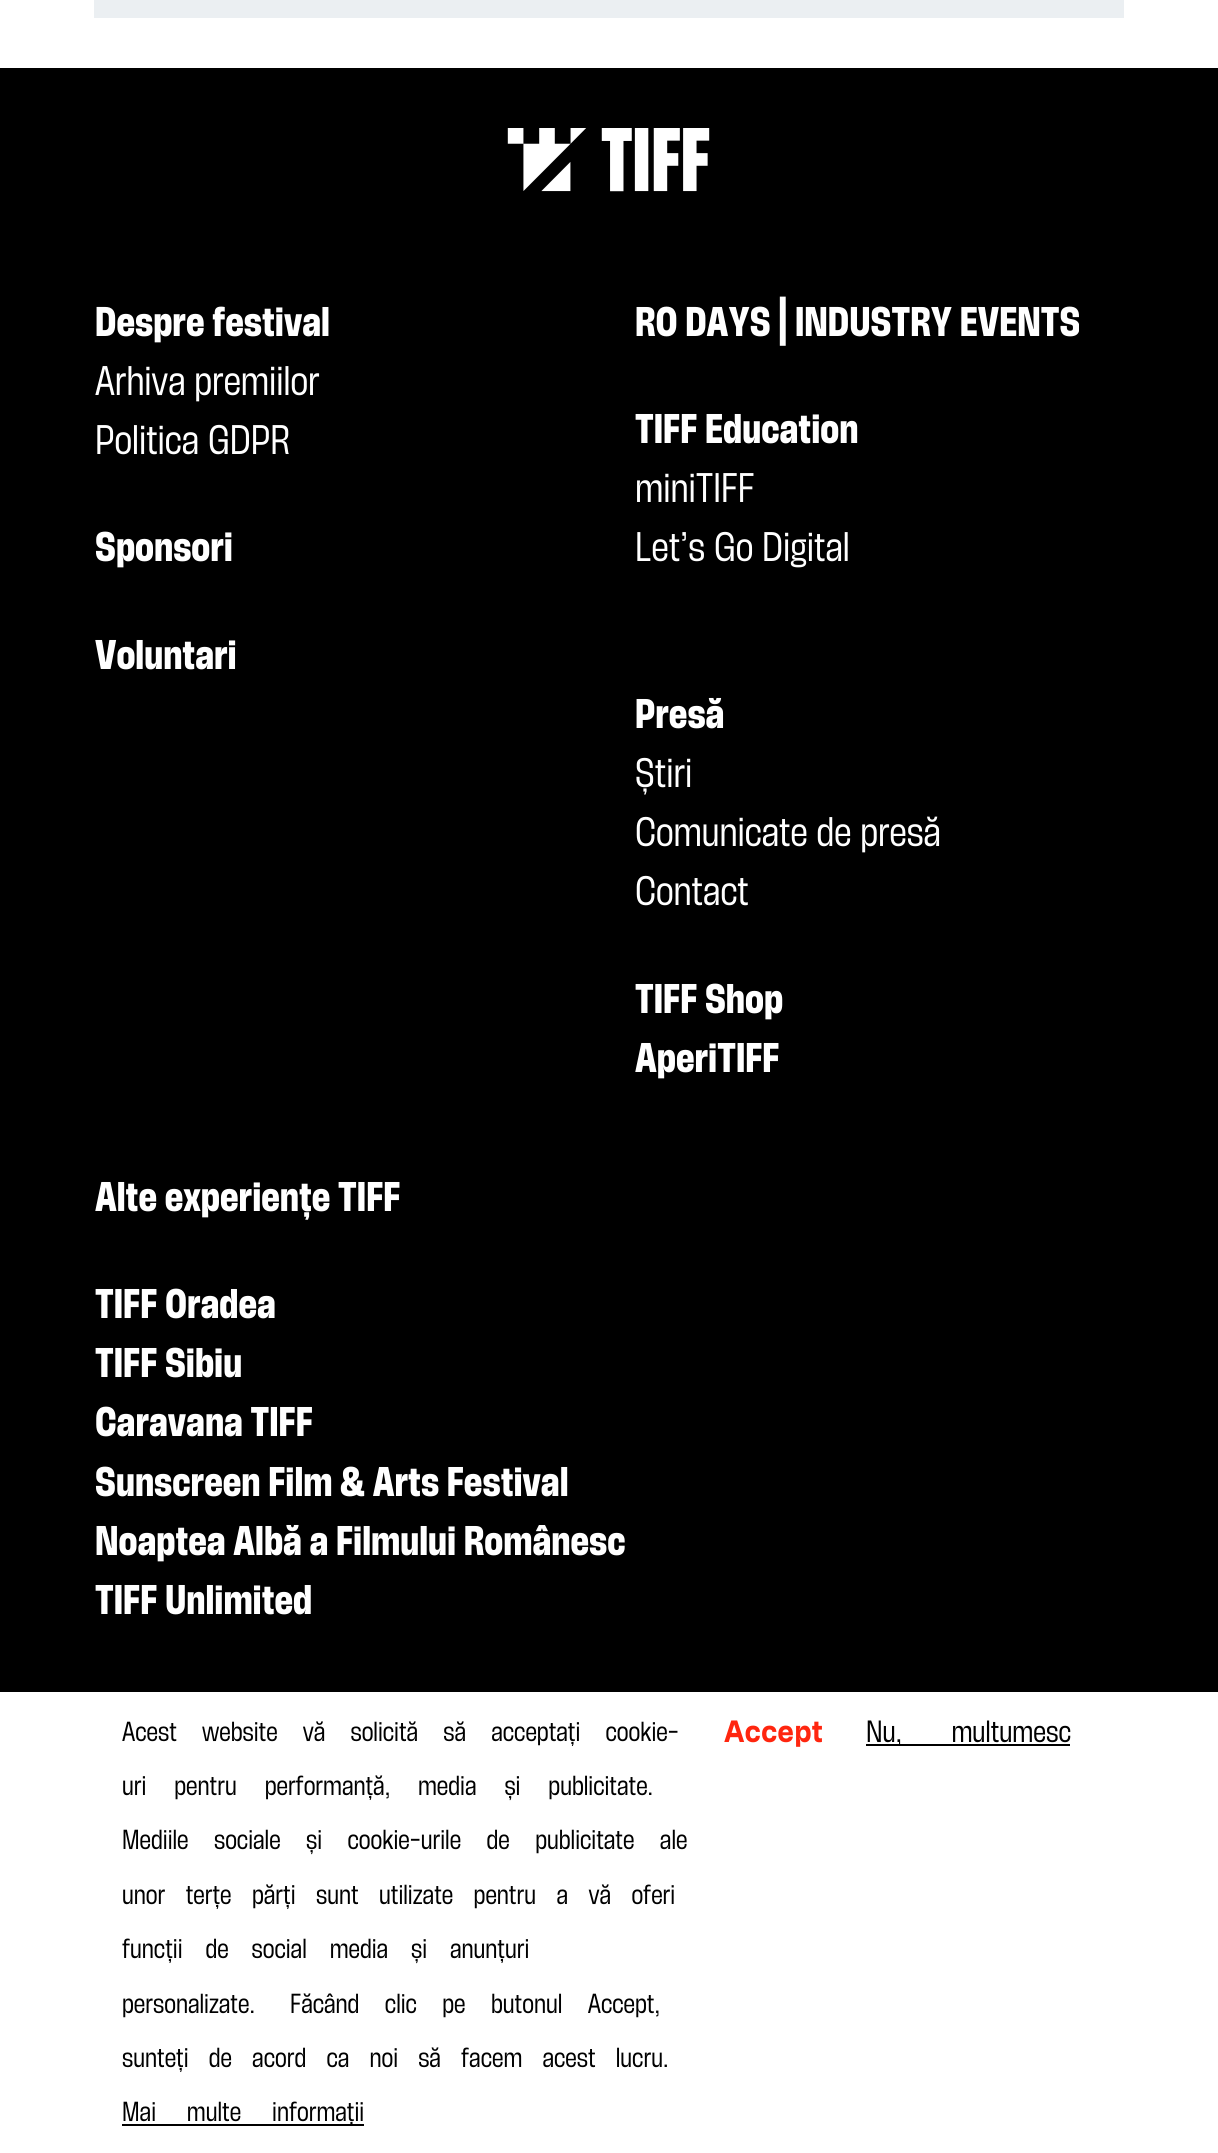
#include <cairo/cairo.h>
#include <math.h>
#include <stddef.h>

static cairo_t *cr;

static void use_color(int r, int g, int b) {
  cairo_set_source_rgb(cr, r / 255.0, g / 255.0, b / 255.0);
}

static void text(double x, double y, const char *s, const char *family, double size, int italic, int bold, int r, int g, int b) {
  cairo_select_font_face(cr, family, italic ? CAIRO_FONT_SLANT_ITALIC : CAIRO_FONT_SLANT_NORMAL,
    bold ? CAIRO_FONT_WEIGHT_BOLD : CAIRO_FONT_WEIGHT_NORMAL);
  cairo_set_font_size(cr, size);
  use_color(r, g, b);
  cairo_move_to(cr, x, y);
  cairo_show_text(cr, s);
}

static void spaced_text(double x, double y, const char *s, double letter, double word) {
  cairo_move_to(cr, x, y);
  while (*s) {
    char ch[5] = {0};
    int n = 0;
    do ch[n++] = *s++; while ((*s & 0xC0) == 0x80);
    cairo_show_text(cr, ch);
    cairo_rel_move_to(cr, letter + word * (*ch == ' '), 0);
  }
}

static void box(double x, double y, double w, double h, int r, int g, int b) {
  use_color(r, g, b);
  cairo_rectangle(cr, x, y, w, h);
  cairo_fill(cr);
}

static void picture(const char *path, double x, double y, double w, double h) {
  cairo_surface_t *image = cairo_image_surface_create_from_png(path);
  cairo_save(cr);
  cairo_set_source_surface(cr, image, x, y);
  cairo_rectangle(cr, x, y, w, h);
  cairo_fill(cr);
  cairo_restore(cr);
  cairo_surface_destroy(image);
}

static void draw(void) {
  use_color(255, 255, 255);
  cairo_paint(cr);
  box(94, 0, 1030, 18, 235, 239, 242);
  box(0, 68, 1218, 1624, 0, 0, 0);
  picture("img_01.png", 507, 128, 203, 64);
  box(122, 2124, 242, 2, 0, 0, 0);
  box(866, 1744, 204, 2, 0, 0, 0);
  text(95, 336, "Despre festival", "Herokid", 36, 0, 1, 255, 255, 255);
  text(95, 395, "Arhiva premiilor", "Herokid", 36, 0, 0, 255, 255, 255);
  text(95, 454, "Politica GDPR", "Herokid", 36, 0, 0, 255, 255, 255);
  text(95, 561, "Sponsori", "Herokid", 36, 0, 1, 255, 255, 255);
  text(95, 669, "Voluntari", "Herokid", 36, 0, 1, 255, 255, 255);
  text(635, 336, "RO DAYS | INDUSTRY EVENTS", "Herokid", 36, 0, 1, 255, 255, 255);
  text(635, 443, "TIFF Education", "Herokid", 36, 0, 1, 255, 255, 255);
  text(635, 502, "miniTIFF", "Herokid", 36, 0, 0, 255, 255, 255);
  text(635, 561, "Let’s Go Digital", "Herokid", 36, 0, 0, 255, 255, 255);
  text(635, 728, "Presă", "Herokid", 36, 0, 1, 255, 255, 255);
  text(635, 787, "Știri", "Herokid", 36, 0, 0, 255, 255, 255);
  text(635, 846, "Comunicate de presă", "Herokid", 36, 0, 0, 255, 255, 255);
  text(635, 905, "Contact", "Herokid", 36, 0, 0, 255, 255, 255);
  text(635, 1013, "TIFF Shop", "Herokid", 36, 0, 1, 255, 255, 255);
  text(635, 1072, "AperiTIFF", "Herokid", 36, 0, 1, 255, 255, 255);
  text(95, 1211, "Alte experiențe TIFF", "Herokid", 36, 0, 1, 255, 255, 255);
  text(95, 1318, "TIFF Oradea", "Herokid", 36, 0, 1, 255, 255, 255);
  text(95, 1377, "TIFF Sibiu", "Herokid", 36, 0, 1, 255, 255, 255);
  text(95, 1436, "Caravana TIFF", "Herokid", 36, 0, 1, 255, 255, 255);
  text(95, 1496, "Sunscreen Film & Arts Festival", "Herokid", 36, 0, 1, 255, 255, 255);
  text(95, 1555, "Noaptea Albă a Filmului Românesc", "Herokid", 36, 0, 1, 255, 255, 255);
  text(95, 1614, "TIFF Unlimited", "Herokid", 36, 0, 1, 255, 255, 255);
  cairo_select_font_face(cr, "Herokid", CAIRO_FONT_SLANT_NORMAL, CAIRO_FONT_WEIGHT_NORMAL);
  cairo_set_font_size(cr, 24);
  use_color(0, 0, 0);
  spaced_text(122, 1741, "Acest website vă solicită să acceptați cookie-", 0, 19.25);
  spaced_text(122, 1795, "uri pentru performanță, media și publicitate.", 0, 22);
  spaced_text(122, 1849, "Mediile sociale și cookie-urile de publicitate ale", 0, 19.5);
  spaced_text(122, 1904, "unor terțe părți sunt utilizate pentru a vă oferi", 0, 14.5);
  spaced_text(122, 1958, "funcții de social media și anunțuri", 0, 17);
  text(122, 2013, "personalizate.", "Herokid", 24, 0, 0, 0, 0, 0);
  spaced_text(290, 2013, "Făcând clic pe butonul Accept,", 0, 19.5);
  spaced_text(122, 2067, "sunteți de acord ca noi să facem acest lucru.", 0, 14.25);
  spaced_text(122, 2121, "Mai multe informații", 0, 25);
  text(724, 1742, "Accept", "Herokid SemiBold", 26.75, 0, 0, 255, 38, 15);
  cairo_select_font_face(cr, "Herokid", CAIRO_FONT_SLANT_NORMAL, CAIRO_FONT_WEIGHT_NORMAL);
  use_color(0, 0, 0);
  spaced_text(866, 1742, "Nu, multumesc", 0, 43);
}

int main(void) {
  cairo_surface_t *surface = cairo_image_surface_create(CAIRO_FORMAT_RGB24, 1218, 2153);
  cr = cairo_create(surface);
  cairo_font_options_t *options = cairo_font_options_create();
  cairo_font_options_set_hint_metrics(options, CAIRO_HINT_METRICS_OFF);
  cairo_font_options_set_hint_style(options, CAIRO_HINT_STYLE_NONE);
  cairo_set_font_options(cr, options);
  cairo_set_miter_limit(cr, 4);
  draw();
  cairo_surface_write_to_png(surface, "out.png");
  cairo_font_options_destroy(options);
  cairo_destroy(cr);
  cairo_surface_destroy(surface);
  return 0;
}
